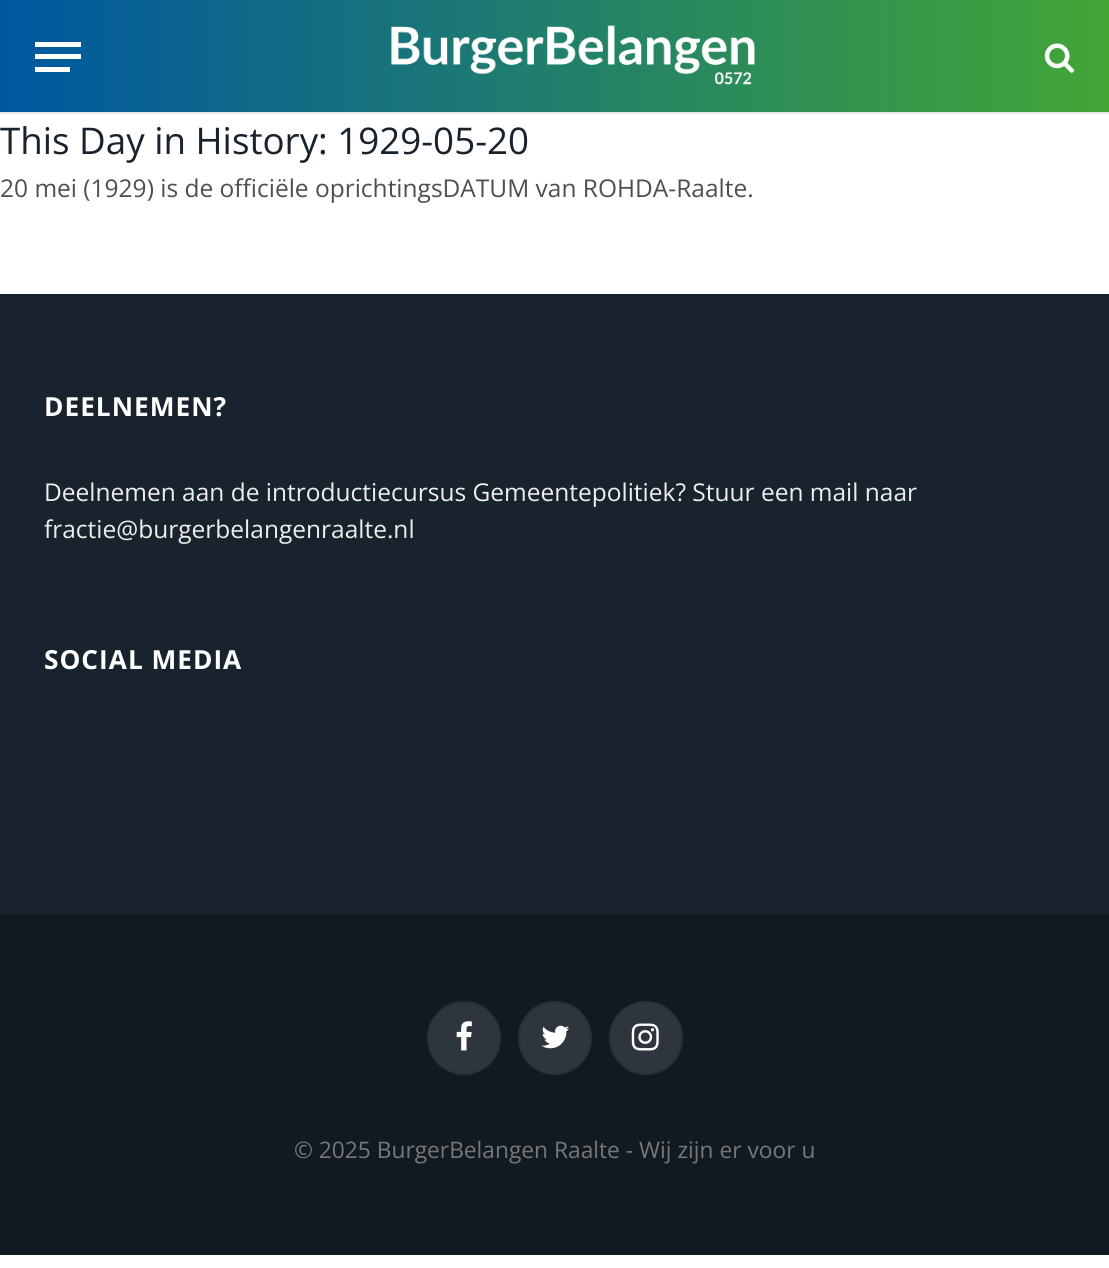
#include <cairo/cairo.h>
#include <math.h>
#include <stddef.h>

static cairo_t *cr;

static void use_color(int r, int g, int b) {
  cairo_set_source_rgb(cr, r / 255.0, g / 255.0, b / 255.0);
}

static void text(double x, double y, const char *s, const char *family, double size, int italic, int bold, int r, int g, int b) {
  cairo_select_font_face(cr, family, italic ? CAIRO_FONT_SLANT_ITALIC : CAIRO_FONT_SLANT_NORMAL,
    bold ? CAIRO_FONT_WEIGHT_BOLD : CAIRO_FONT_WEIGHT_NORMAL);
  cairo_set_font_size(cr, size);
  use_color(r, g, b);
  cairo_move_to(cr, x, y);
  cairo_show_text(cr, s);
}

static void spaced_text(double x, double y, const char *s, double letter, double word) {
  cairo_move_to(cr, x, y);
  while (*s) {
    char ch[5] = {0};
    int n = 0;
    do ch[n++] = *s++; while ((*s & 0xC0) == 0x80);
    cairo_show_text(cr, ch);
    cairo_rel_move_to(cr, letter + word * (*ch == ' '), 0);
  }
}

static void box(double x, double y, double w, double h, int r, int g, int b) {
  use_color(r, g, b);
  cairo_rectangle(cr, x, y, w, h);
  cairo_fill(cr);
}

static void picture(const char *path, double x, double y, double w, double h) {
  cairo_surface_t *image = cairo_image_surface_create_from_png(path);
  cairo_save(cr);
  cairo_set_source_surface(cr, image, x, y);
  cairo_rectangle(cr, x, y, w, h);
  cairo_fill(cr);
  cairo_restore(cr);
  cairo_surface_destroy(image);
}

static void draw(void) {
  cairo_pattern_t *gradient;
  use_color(255, 255, 255);
  cairo_paint(cr);
  gradient = cairo_pattern_create_linear(0, 56, 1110, 56);
  cairo_pattern_add_color_stop_rgba(gradient, 0, 0, 0.341, 0.631, 1);
  cairo_pattern_add_color_stop_rgba(gradient, 1, 0.259, 0.651, 0.212, 1);
  cairo_set_source(cr, gradient);
  cairo_pattern_destroy(gradient);
  cairo_rectangle(cr, 0, 0, 1109, 112);
  cairo_fill(cr);
  box(0, 112, 1109, 2, 232, 232, 232);
  box(35, 67, 35, 5, 255, 255, 255);
  box(35, 42, 46, 5, 255, 255, 255);
  box(35, 54, 46, 5, 255, 255, 255);
  picture("img_01.png", 391, 25, 364, 60);
  picture("img_02.png", 1044, 43, 30, 30);
  box(0, 294, 1109, 620, 25, 35, 45);
  box(0, 914, 1109, 341, 18, 26, 33);
  use_color(46, 53, 60);
  cairo_arc(cr, 464, 1038, 37, 0, 2 * M_PI);
  cairo_fill(cr);
  cairo_arc(cr, 464, 1038, 36, 0, 2 * M_PI);
  cairo_set_source_rgba(cr, 0, 0, 0, 0.09);
  cairo_stroke(cr);
  picture("img_03.png", 456, 1021, 16, 30);
  use_color(46, 53, 60);
  cairo_arc(cr, 555, 1038, 37, 0, 2 * M_PI);
  cairo_fill(cr);
  cairo_arc(cr, 555, 1038, 36, 0, 2 * M_PI);
  cairo_set_source_rgba(cr, 0, 0, 0, 0.09);
  cairo_stroke(cr);
  picture("img_04.png", 541, 1025, 29, 24);
  use_color(46, 53, 60);
  cairo_arc(cr, 646, 1038, 37, 0, 2 * M_PI);
  cairo_fill(cr);
  cairo_arc(cr, 646, 1038, 36, 0, 2 * M_PI);
  cairo_set_source_rgba(cr, 0, 0, 0, 0.09);
  cairo_stroke(cr);
  picture("img_05.png", 631, 1023, 28, 28);
  text(0, 154, "This Day in History: 1929-05-20", "Open Sans", 36.75, 0, 0, 25, 35, 45);
  text(0, 197, "20 mei (1929) is de officiële oprichtingsDATUM van ROHDA-Raalte.", "Open Sans", 24.5, 0, 0, 77, 80, 83);
  cairo_select_font_face(cr, "Open Sans", CAIRO_FONT_SLANT_NORMAL, CAIRO_FONT_WEIGHT_BOLD);
  cairo_set_font_size(cr, 26.25);
  use_color(255, 255, 255);
  spaced_text(44, 416, "DEELNEMEN?", 1, 0);
  text(44, 501, "Deelnemen aan de introductiecursus Gemeentepolitiek? Stuur een mail naar", "Open Sans", 24.5, 0, 0, 238, 238, 238);
  text(44, 538, "fractie@burgerbelangenraalte.nl", "Open Sans", 24.5, 0, 0, 238, 238, 238);
  cairo_select_font_face(cr, "Open Sans", CAIRO_FONT_SLANT_NORMAL, CAIRO_FONT_WEIGHT_BOLD);
  cairo_set_font_size(cr, 26.25);
  use_color(255, 255, 255);
  spaced_text(44, 669, "SOCIAL MEDIA", 1, 0);
  text(294, 1158, "© 2025 BurgerBelangen Raalte - Wij zijn er voor u", "Open Sans", 22.75, 0, 0, 119, 119, 119);
}

int main(void) {
  cairo_surface_t *surface = cairo_image_surface_create(CAIRO_FORMAT_RGB24, 1109, 1268);
  cr = cairo_create(surface);
  cairo_font_options_t *options = cairo_font_options_create();
  cairo_font_options_set_hint_metrics(options, CAIRO_HINT_METRICS_OFF);
  cairo_font_options_set_hint_style(options, CAIRO_HINT_STYLE_NONE);
  cairo_set_font_options(cr, options);
  cairo_set_miter_limit(cr, 4);
  draw();
  cairo_surface_write_to_png(surface, "out.png");
  cairo_font_options_destroy(options);
  cairo_destroy(cr);
  cairo_surface_destroy(surface);
  return 0;
}
